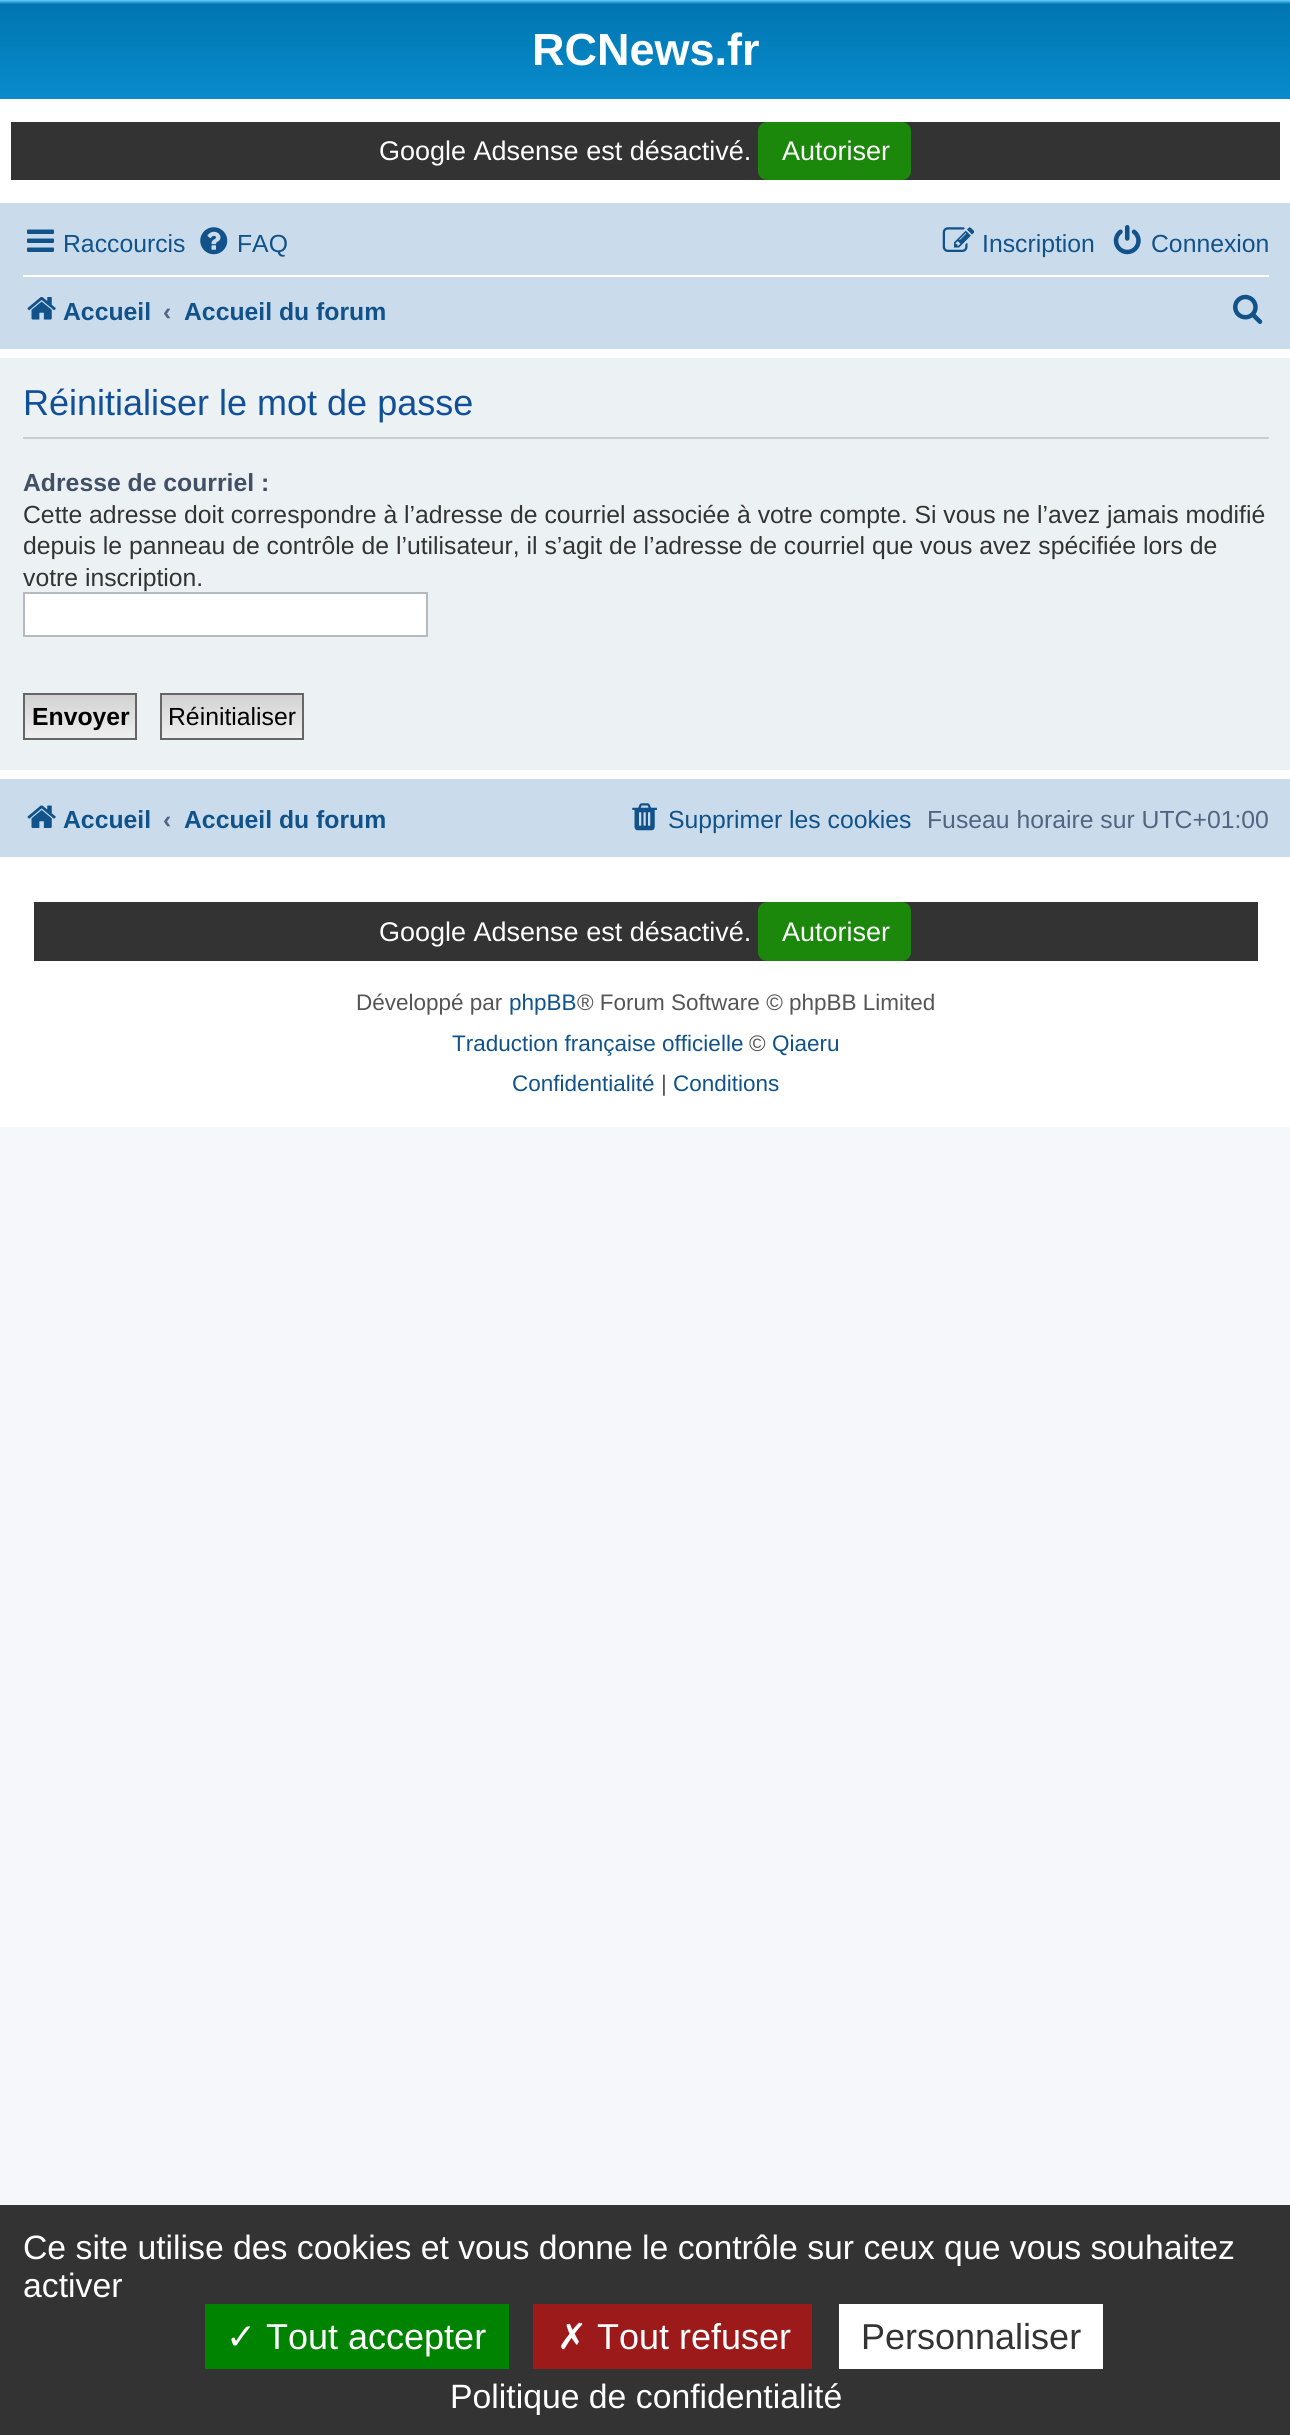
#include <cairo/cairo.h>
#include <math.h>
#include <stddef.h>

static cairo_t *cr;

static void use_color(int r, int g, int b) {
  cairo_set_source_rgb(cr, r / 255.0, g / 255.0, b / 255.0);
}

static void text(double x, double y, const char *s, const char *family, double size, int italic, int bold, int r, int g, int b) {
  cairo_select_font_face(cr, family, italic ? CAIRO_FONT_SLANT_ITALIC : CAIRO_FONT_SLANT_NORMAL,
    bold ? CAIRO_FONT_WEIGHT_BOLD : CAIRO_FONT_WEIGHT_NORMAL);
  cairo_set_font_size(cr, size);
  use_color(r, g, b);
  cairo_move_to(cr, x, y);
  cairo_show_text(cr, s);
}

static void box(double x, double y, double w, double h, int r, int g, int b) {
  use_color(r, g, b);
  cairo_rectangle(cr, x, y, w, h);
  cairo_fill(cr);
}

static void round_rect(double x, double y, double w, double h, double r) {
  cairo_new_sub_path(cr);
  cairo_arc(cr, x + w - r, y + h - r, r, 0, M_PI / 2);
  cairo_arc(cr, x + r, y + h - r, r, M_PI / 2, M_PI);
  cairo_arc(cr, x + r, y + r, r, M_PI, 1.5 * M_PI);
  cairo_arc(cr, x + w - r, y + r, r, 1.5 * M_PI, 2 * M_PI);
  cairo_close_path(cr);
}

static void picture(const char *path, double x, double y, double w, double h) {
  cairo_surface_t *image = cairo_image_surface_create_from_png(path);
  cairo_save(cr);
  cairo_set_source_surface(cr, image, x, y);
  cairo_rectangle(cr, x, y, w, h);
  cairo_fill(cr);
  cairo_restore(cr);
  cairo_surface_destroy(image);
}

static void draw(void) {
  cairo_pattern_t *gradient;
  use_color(245, 247, 250);
  cairo_paint(cr);
  box(0, 99, 1290, 1028, 255, 255, 255);
  gradient = cairo_pattern_create_linear(646, 0, 646, 207);
  cairo_pattern_add_color_stop_rgba(gradient, 0, 0.416, 0.808, 1, 1);
  cairo_pattern_add_color_stop_rgba(gradient, 0.02, 0, 0.463, 0.694, 1);
  cairo_pattern_add_color_stop_rgba(gradient, 1, 0.071, 0.639, 0.922, 1);
  cairo_set_source(cr, gradient);
  cairo_pattern_destroy(gradient);
  cairo_rectangle(cr, 0, 0, 1290, 99);
  cairo_fill(cr);
  box(11, 122, 1269, 58, 51, 51, 51);
  use_color(27, 135, 11);
  round_rect(758, 122, 153, 58, 9);
  cairo_fill(cr);
  box(0, 203, 1290, 146, 202, 220, 235);
  picture("img_01.png", 27, 229, 27, 23);
  picture("img_02.png", 200, 227, 28, 28);
  picture("img_03.png", 942, 227, 33, 25);
  picture("img_04.png", 1113, 225, 28, 30);
  box(23, 275, 1246, 2, 255, 255, 255);
  picture("img_05.png", 27, 297, 29, 23);
  picture("img_06.png", 1233, 294, 30, 30);
  box(0, 358, 1290, 412, 236, 241, 243);
  box(23, 437, 1246, 2, 204, 204, 204);
  use_color(255, 255, 255);
  cairo_rectangle(cr, 24, 593, 403, 43);
  cairo_fill_preserve(cr);
  use_color(180, 186, 192);
  cairo_stroke(cr);
  gradient = cairo_pattern_create_linear(80, 695, 80, 738);
  cairo_pattern_add_color_stop_rgba(gradient, 0, 0.824, 0.824, 0.824, 1);
  cairo_pattern_add_color_stop_rgba(gradient, 1, 0.937, 0.937, 0.937, 1);
  cairo_set_source(cr, gradient);
  cairo_pattern_destroy(gradient);
  cairo_rectangle(cr, 25, 695, 110, 43);
  cairo_fill(cr);
  cairo_rectangle(cr, 24, 694, 112, 45);
  use_color(102, 102, 102);
  cairo_stroke(cr);
  gradient = cairo_pattern_create_linear(232, 695, 232, 738);
  cairo_pattern_add_color_stop_rgba(gradient, 0, 0.824, 0.824, 0.824, 1);
  cairo_pattern_add_color_stop_rgba(gradient, 1, 0.937, 0.937, 0.937, 1);
  cairo_set_source(cr, gradient);
  cairo_pattern_destroy(gradient);
  cairo_rectangle(cr, 162, 695, 140, 43);
  cairo_fill(cr);
  cairo_rectangle(cr, 161, 694, 142, 45);
  use_color(102, 102, 102);
  cairo_stroke(cr);
  box(0, 779, 1290, 78, 202, 220, 235);
  picture("img_07.png", 27, 805, 29, 23);
  picture("img_08.png", 632, 803, 25, 28);
  box(34, 902, 1224, 59, 51, 51, 51);
  use_color(27, 135, 11);
  round_rect(758, 902, 153, 59, 9);
  cairo_fill(cr);
  box(0, 2205, 1290, 230, 51, 51, 51);
  box(205, 2304, 304, 65, 0, 131, 0);
  box(533, 2304, 279, 65, 156, 26, 26);
  box(839, 2304, 264, 65, 255, 255, 255);
  text(532, 65, "RCNews.fr", "Liberation Sans", 45, 0, 1, 255, 255, 255);
  text(379, 160, "Google Adsense est désactivé.", "Liberation Sans", 27, 0, 0, 255, 255, 255);
  text(782, 160, "Autoriser", "Liberation Sans", 27, 0, 0, 255, 255, 255);
  text(63, 252, "Raccourcis", "Liberation Sans", 24.75, 0, 0, 16, 82, 137);
  text(237, 252, "FAQ", "Liberation Sans", 24.75, 0, 0, 16, 82, 137);
  text(982, 252, "Inscription", "Liberation Sans", 24.75, 0, 0, 16, 82, 137);
  text(1151, 252, "Connexion", "Liberation Sans", 24.75, 0, 0, 16, 82, 137);
  text(63, 320, "Accueil", "Liberation Sans", 24.75, 0, 1, 16, 82, 137);
  text(163, 320, "‹", "Liberation Sans", 24.75, 0, 1, 83, 100, 130);
  text(184, 320, "Accueil du forum", "Liberation Sans", 24.75, 0, 1, 16, 82, 137);
  text(23, 415, "Réinitialiser le mot de passe", "Liberation Sans", 36, 0, 0, 17, 80, 152);
  text(23, 491, "Adresse de courriel :", "Liberation Sans", 24.75, 0, 1, 66, 80, 103);
  text(23, 523, "Cette adresse doit correspondre à l’adresse de courriel associée à votre compte. Si vous ne l’avez jamais modifié", "Liberation Sans", 24.75, 0, 0, 51, 51, 51);
  text(23, 554, "depuis le panneau de contrôle de l’utilisateur, il s’agit de l’adresse de courriel que vous avez spécifiée lors de", "Liberation Sans", 24.75, 0, 0, 51, 51, 51);
  text(23, 586, "votre inscription.", "Liberation Sans", 24.75, 0, 0, 51, 51, 51);
  text(32, 725, "Envoyer", "Liberation Sans", 24.75, 0, 1, 0, 0, 0);
  text(168, 725, "Réinitialiser", "Liberation Sans", 24.75, 0, 0, 0, 0, 0);
  text(63, 828, "Accueil", "Liberation Sans", 24.75, 0, 1, 16, 82, 137);
  text(163, 828, "‹", "Liberation Sans", 24.75, 0, 1, 83, 100, 130);
  text(184, 828, "Accueil du forum", "Liberation Sans", 24.75, 0, 1, 16, 82, 137);
  text(668, 828, "Supprimer les cookies", "Liberation Sans", 24.75, 0, 0, 16, 82, 137);
  text(927, 828, "Fuseau horaire sur UTC+01:00", "Liberation Sans", 24.75, 0, 0, 83, 100, 130);
  text(379, 941, "Google Adsense est désactivé.", "Liberation Sans", 27, 0, 0, 255, 255, 255);
  text(782, 941, "Autoriser", "Liberation Sans", 27, 0, 0, 255, 255, 255);
  text(356, 1010, "Développé par", "Liberation Sans", 22.5, 0, 0, 85, 85, 85);
  text(509, 1010, "phpBB", "Liberation Sans", 22.5, 0, 0, 16, 82, 137);
  text(577, 1010, "® Forum Software © phpBB Limited", "Liberation Sans", 22.5, 0, 0, 85, 85, 85);
  text(452, 1051, "Traduction française officielle", "Liberation Sans", 22.5, 0, 0, 16, 82, 137);
  text(749, 1051, "©", "Liberation Sans", 22.5, 0, 0, 85, 85, 85);
  text(772, 1051, "Qiaeru", "Liberation Sans", 22.5, 0, 0, 16, 82, 137);
  text(512, 1091, "Confidentialité", "Liberation Sans", 22.5, 0, 0, 16, 82, 137);
  text(661, 1091, "|", "Liberation Sans", 22.5, 0, 0, 85, 85, 85);
  text(673, 1091, "Conditions", "Liberation Sans", 22.5, 0, 0, 16, 82, 137);
  text(23, 2259, "Ce site utilise des cookies et vous donne le contrôle sur ceux que vous souhaitez", "Liberation Sans", 33.75, 0, 0, 255, 255, 255);
  text(23, 2297, "activer", "Liberation Sans", 33.75, 0, 0, 255, 255, 255);
  text(226, 2349, "✓", "DejaVu Sans", 36, 0, 0, 255, 255, 255);
  text(266, 2349, "Tout accepter", "Liberation Sans", 36, 0, 0, 255, 255, 255);
  text(557, 2349, "✗", "DejaVu Sans", 36, 0, 0, 255, 255, 255);
  text(597, 2349, "Tout refuser", "Liberation Sans", 36, 0, 0, 255, 255, 255);
  text(861, 2349, "Personnaliser", "Liberation Sans", 36, 0, 0, 51, 51, 51);
  text(450, 2408, "Politique de confidentialité", "Liberation Sans", 33.75, 0, 0, 255, 255, 255);
}

int main(void) {
  cairo_surface_t *surface = cairo_image_surface_create(CAIRO_FORMAT_RGB24, 1290, 2435);
  cr = cairo_create(surface);
  cairo_font_options_t *options = cairo_font_options_create();
  cairo_font_options_set_hint_metrics(options, CAIRO_HINT_METRICS_OFF);
  cairo_font_options_set_hint_style(options, CAIRO_HINT_STYLE_NONE);
  cairo_set_font_options(cr, options);
  cairo_set_miter_limit(cr, 4);
  draw();
  cairo_surface_write_to_png(surface, "out.png");
  cairo_font_options_destroy(options);
  cairo_destroy(cr);
  cairo_surface_destroy(surface);
  return 0;
}
